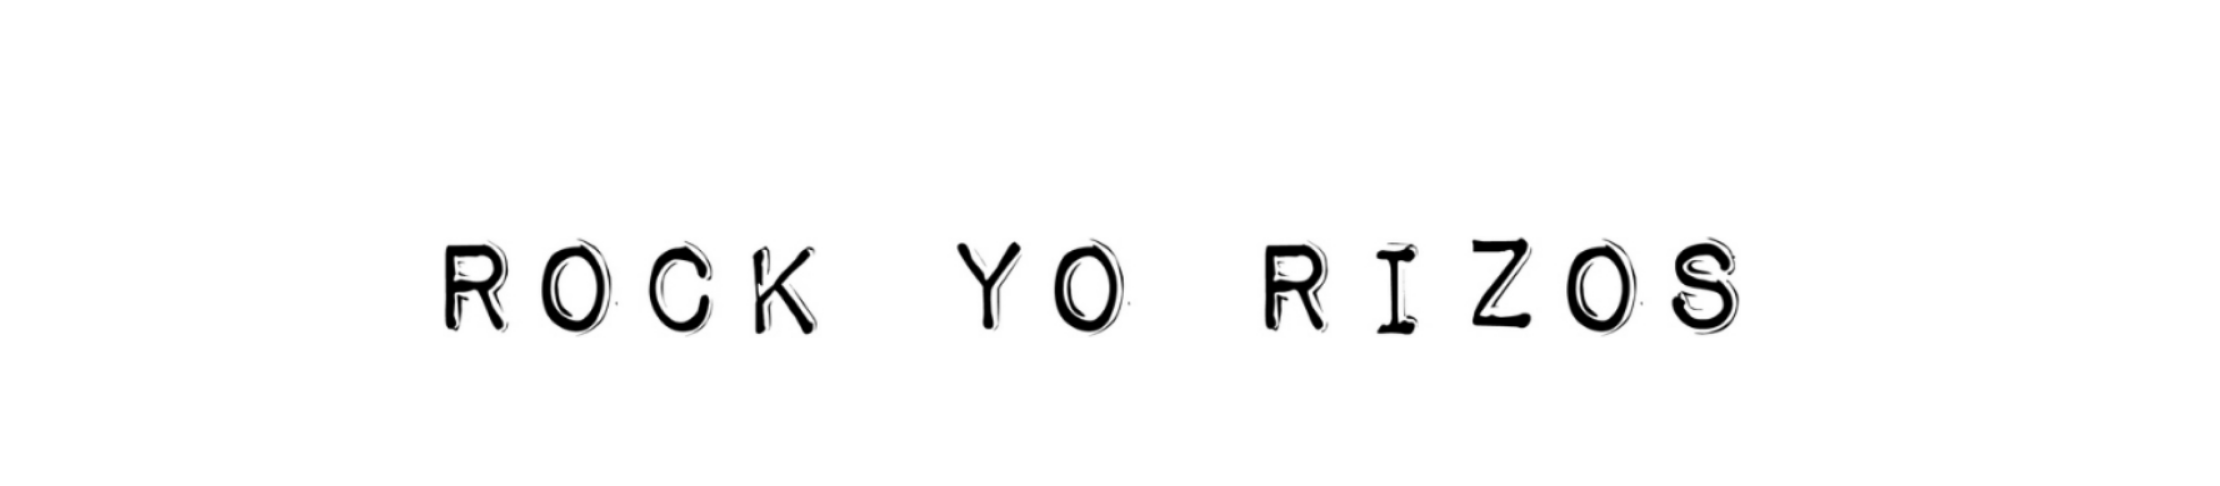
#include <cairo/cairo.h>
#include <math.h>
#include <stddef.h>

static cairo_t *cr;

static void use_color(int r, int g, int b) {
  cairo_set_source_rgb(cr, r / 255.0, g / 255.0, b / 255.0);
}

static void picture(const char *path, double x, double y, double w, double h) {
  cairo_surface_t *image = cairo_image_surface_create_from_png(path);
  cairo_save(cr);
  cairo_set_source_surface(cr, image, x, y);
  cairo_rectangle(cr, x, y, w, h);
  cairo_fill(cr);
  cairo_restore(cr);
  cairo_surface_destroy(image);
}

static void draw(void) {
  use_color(255, 255, 255);
  cairo_paint(cr);
  picture("img_01.png", 443, 236, 1298, 102);
}

int main(void) {
  cairo_surface_t *surface = cairo_image_surface_create(CAIRO_FORMAT_RGB24, 2220, 486);
  cr = cairo_create(surface);
  cairo_font_options_t *options = cairo_font_options_create();
  cairo_font_options_set_hint_metrics(options, CAIRO_HINT_METRICS_OFF);
  cairo_font_options_set_hint_style(options, CAIRO_HINT_STYLE_NONE);
  cairo_set_font_options(cr, options);
  cairo_set_miter_limit(cr, 4);
  draw();
  cairo_surface_write_to_png(surface, "out.png");
  cairo_font_options_destroy(options);
  cairo_destroy(cr);
  cairo_surface_destroy(surface);
  return 0;
}
